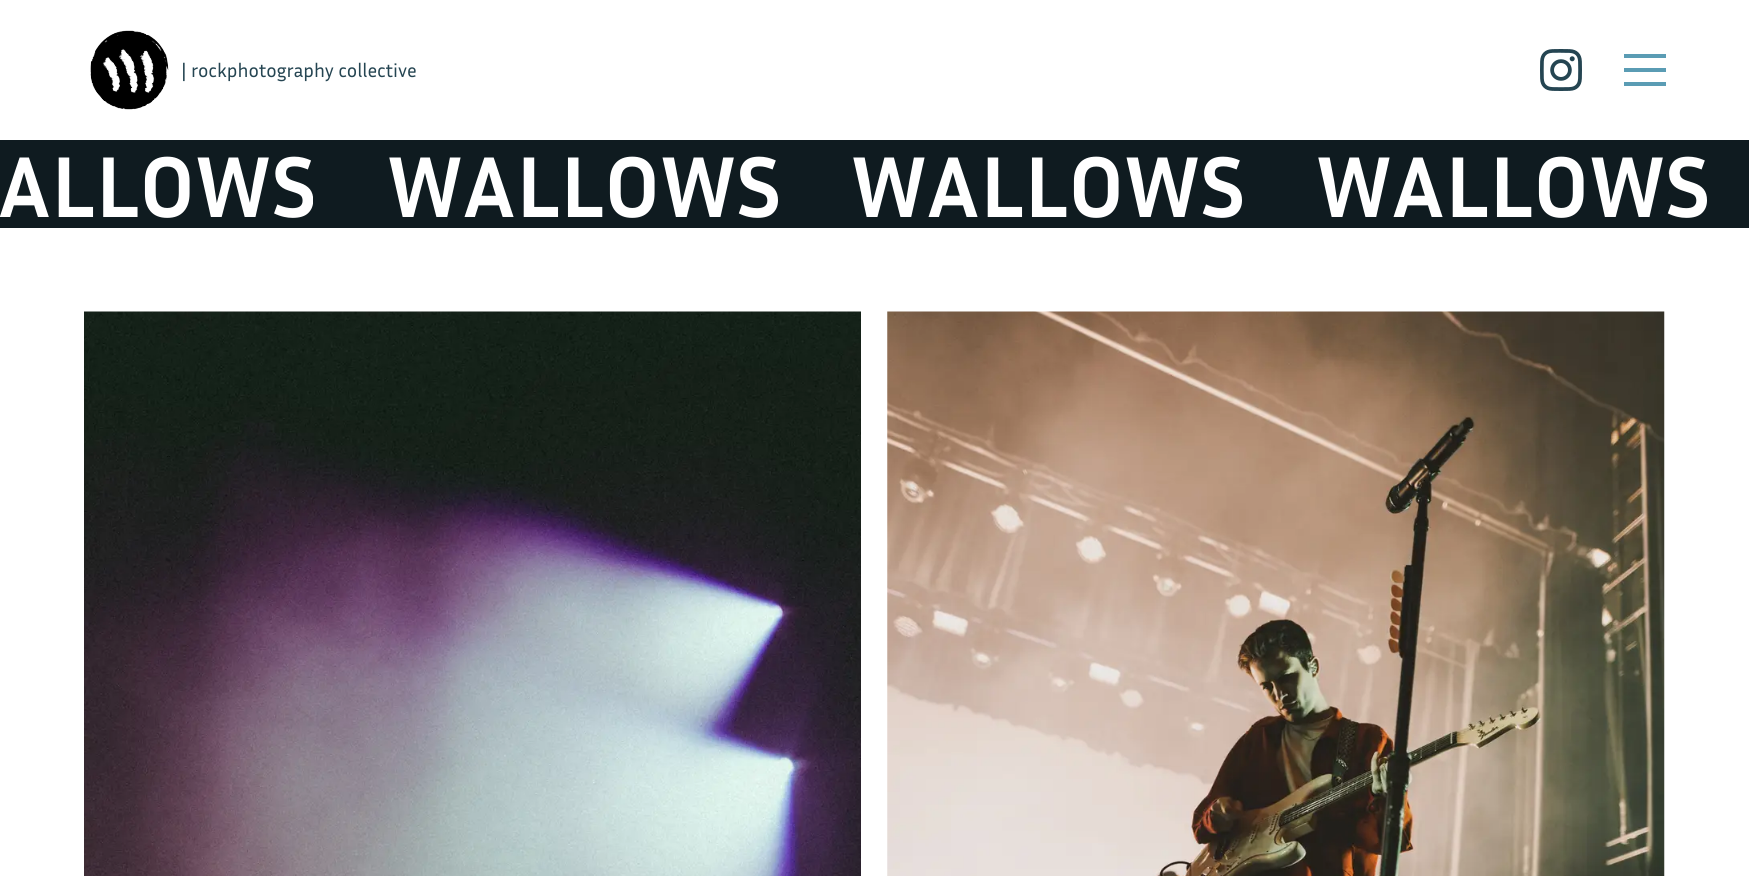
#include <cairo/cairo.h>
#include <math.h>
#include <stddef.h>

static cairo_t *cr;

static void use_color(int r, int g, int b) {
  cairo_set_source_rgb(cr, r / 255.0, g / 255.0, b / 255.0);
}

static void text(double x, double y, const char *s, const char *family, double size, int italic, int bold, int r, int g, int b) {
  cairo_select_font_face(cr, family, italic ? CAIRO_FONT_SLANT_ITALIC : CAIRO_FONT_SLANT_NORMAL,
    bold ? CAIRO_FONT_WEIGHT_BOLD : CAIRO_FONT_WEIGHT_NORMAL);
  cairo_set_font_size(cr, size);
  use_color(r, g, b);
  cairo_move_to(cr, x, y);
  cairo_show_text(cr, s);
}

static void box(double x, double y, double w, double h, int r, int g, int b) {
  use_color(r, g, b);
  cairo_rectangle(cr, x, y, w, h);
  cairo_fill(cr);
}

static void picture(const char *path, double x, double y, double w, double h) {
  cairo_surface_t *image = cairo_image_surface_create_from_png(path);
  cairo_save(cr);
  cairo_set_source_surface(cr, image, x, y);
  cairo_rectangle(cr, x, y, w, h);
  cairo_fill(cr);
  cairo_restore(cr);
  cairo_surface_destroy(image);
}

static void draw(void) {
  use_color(15, 27, 32);
  cairo_paint(cr);
  box(0, 0, 1749, 140, 255, 255, 255);
  picture("img_01.png", 90, 30, 79, 80);
  picture("img_02.png", 1540, 49, 42, 42);
  box(1624, 54, 42, 4, 90, 156, 180);
  box(1624, 68, 42, 4, 90, 156, 180);
  box(1624, 82, 42, 4, 90, 156, 180);
  box(0, 228, 1749, 648, 255, 255, 255);
  picture("img_03.png", 84, 311, 777, 565);
  picture("img_04.png", 887, 311, 778, 565);
  text(181, 77, "| rockphotography collective", "Inria Sans", 19.25, 0, 0, 37, 69, 82);
  text(-2, 217, "ALLOWS", "Inria Sans", 87.5, 0, 1, 255, 255, 255);
  text(387, 217, "WALLOWS", "Inria Sans", 87.5, 0, 1, 255, 255, 255);
  text(851, 217, "WALLOWS", "Inria Sans", 87.5, 0, 1, 255, 255, 255);
  text(1316, 217, "WALLOWS", "Inria Sans", 87.5, 0, 1, 255, 255, 255);
}

int main(void) {
  cairo_surface_t *surface = cairo_image_surface_create(CAIRO_FORMAT_RGB24, 1749, 876);
  cr = cairo_create(surface);
  cairo_font_options_t *options = cairo_font_options_create();
  cairo_font_options_set_hint_metrics(options, CAIRO_HINT_METRICS_OFF);
  cairo_font_options_set_hint_style(options, CAIRO_HINT_STYLE_NONE);
  cairo_set_font_options(cr, options);
  cairo_set_miter_limit(cr, 4);
  draw();
  cairo_surface_write_to_png(surface, "out.png");
  cairo_font_options_destroy(options);
  cairo_destroy(cr);
  cairo_surface_destroy(surface);
  return 0;
}
